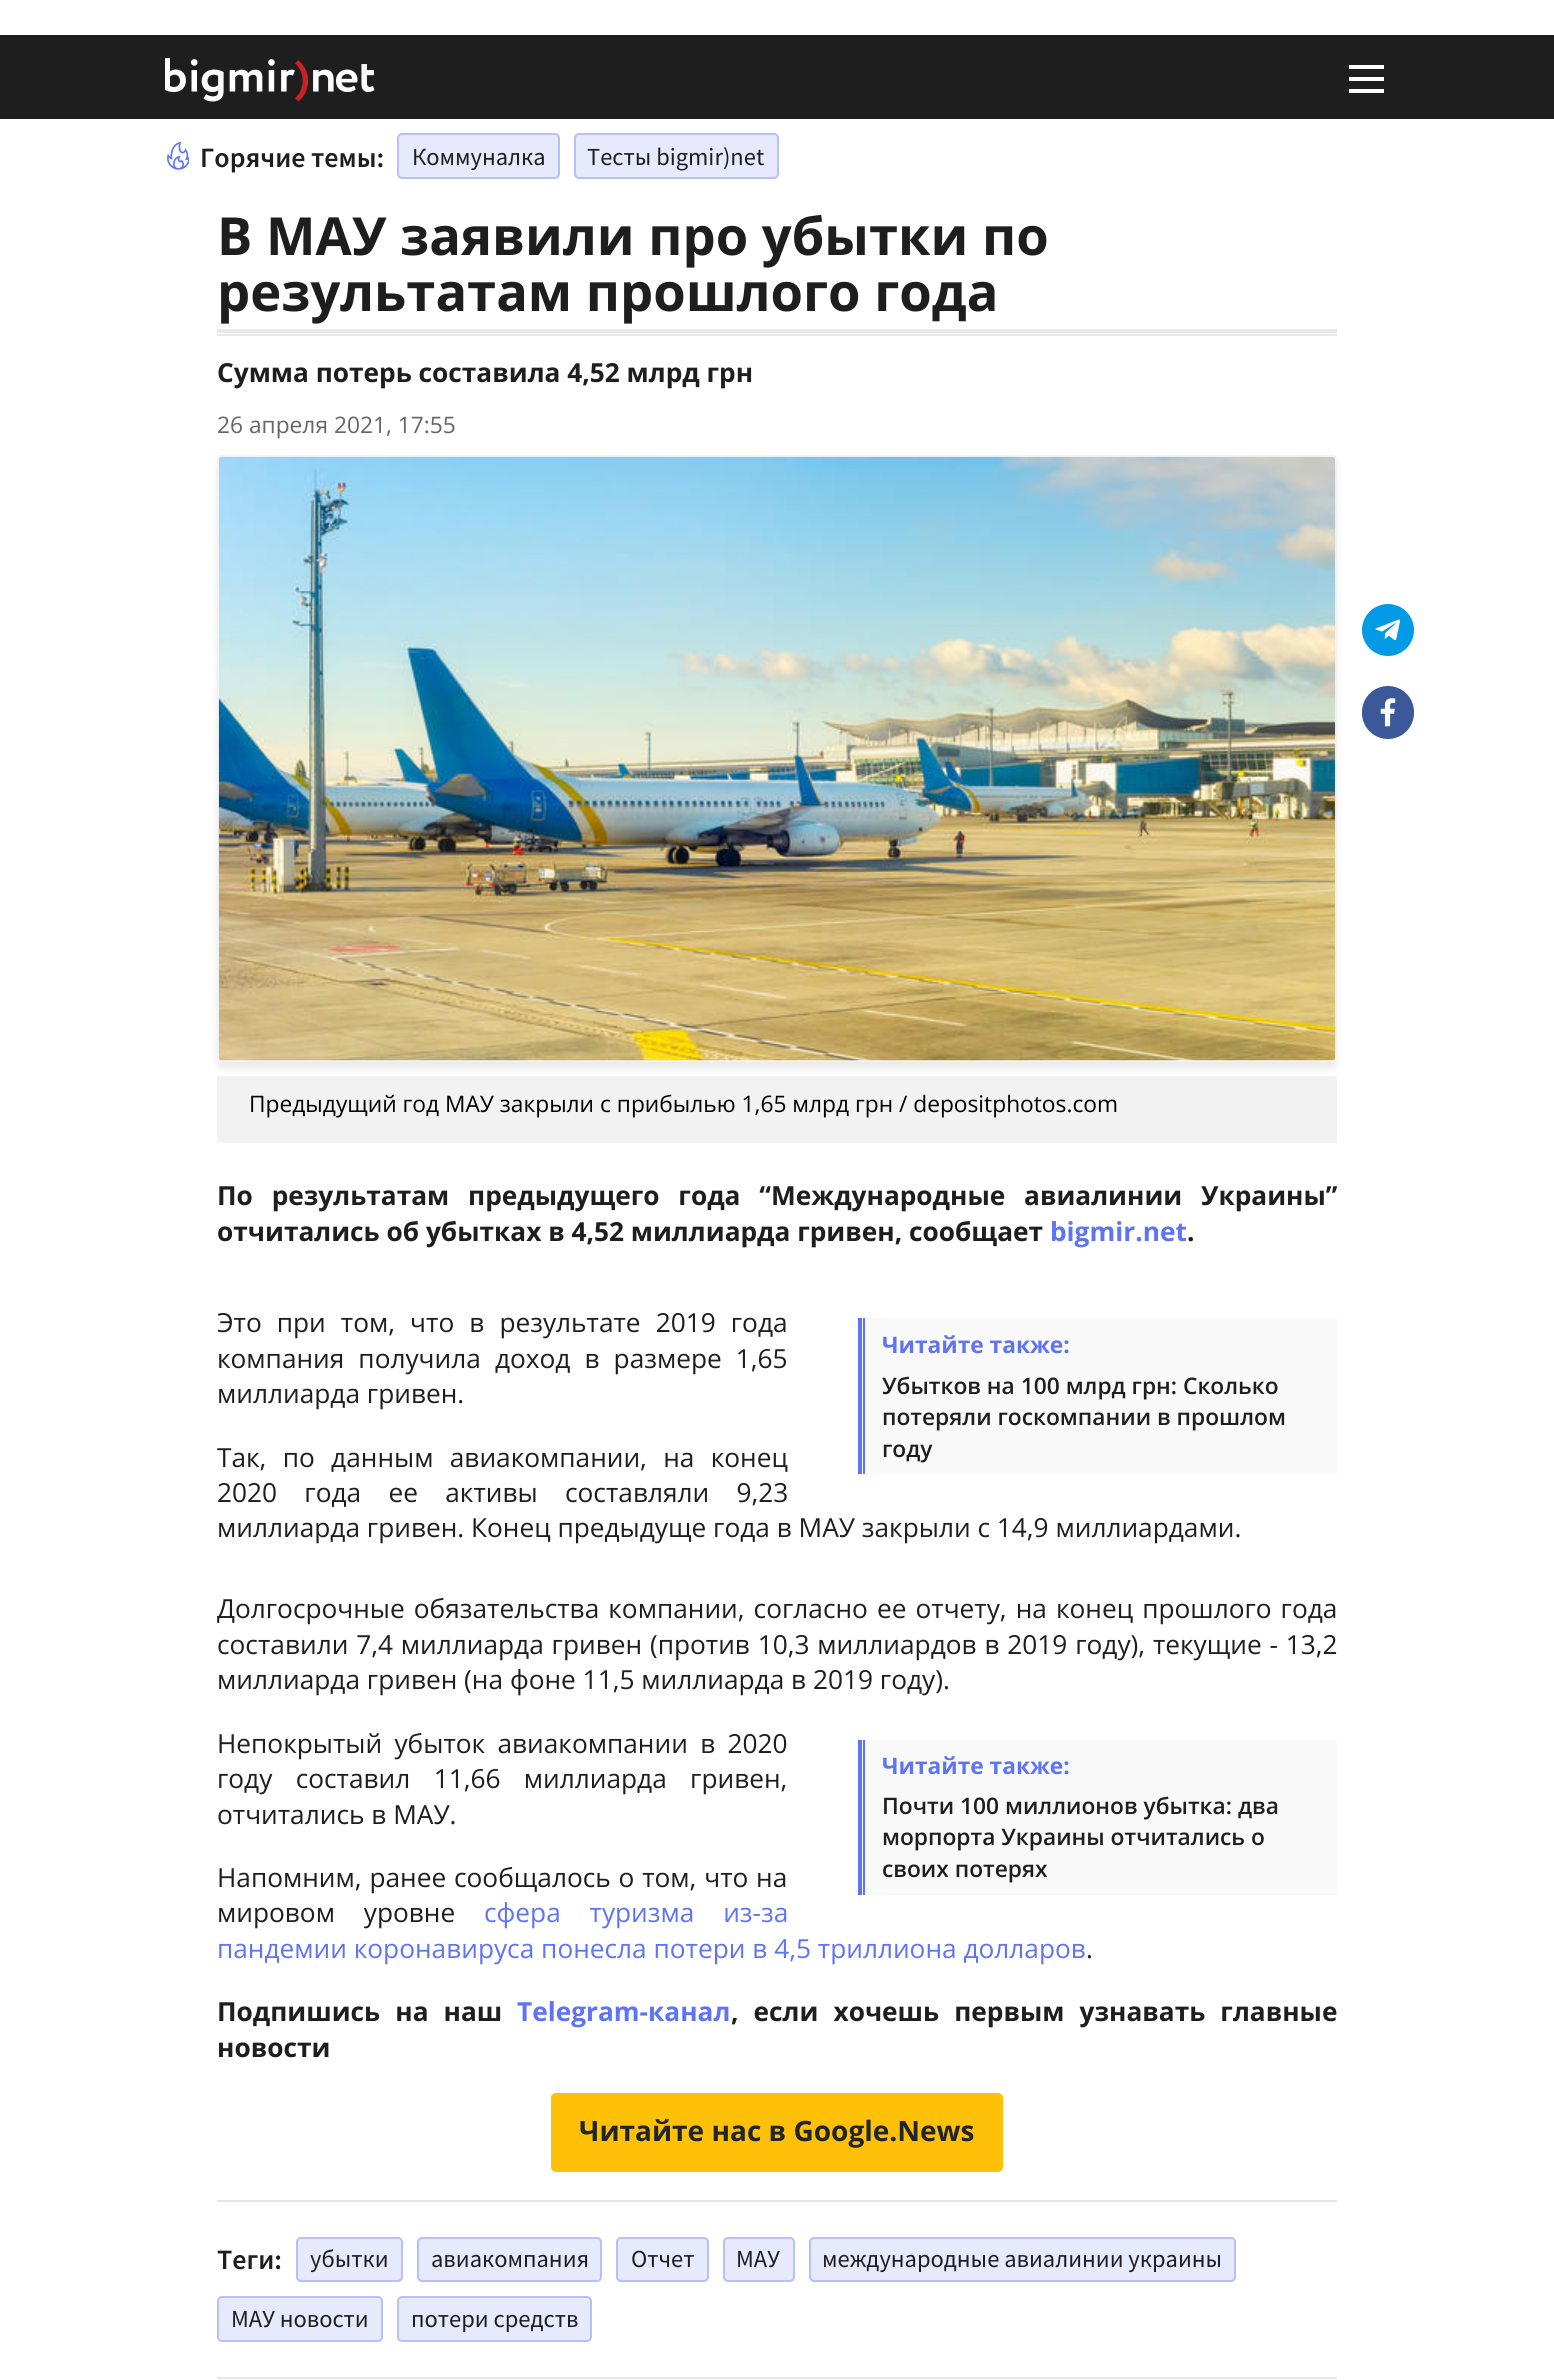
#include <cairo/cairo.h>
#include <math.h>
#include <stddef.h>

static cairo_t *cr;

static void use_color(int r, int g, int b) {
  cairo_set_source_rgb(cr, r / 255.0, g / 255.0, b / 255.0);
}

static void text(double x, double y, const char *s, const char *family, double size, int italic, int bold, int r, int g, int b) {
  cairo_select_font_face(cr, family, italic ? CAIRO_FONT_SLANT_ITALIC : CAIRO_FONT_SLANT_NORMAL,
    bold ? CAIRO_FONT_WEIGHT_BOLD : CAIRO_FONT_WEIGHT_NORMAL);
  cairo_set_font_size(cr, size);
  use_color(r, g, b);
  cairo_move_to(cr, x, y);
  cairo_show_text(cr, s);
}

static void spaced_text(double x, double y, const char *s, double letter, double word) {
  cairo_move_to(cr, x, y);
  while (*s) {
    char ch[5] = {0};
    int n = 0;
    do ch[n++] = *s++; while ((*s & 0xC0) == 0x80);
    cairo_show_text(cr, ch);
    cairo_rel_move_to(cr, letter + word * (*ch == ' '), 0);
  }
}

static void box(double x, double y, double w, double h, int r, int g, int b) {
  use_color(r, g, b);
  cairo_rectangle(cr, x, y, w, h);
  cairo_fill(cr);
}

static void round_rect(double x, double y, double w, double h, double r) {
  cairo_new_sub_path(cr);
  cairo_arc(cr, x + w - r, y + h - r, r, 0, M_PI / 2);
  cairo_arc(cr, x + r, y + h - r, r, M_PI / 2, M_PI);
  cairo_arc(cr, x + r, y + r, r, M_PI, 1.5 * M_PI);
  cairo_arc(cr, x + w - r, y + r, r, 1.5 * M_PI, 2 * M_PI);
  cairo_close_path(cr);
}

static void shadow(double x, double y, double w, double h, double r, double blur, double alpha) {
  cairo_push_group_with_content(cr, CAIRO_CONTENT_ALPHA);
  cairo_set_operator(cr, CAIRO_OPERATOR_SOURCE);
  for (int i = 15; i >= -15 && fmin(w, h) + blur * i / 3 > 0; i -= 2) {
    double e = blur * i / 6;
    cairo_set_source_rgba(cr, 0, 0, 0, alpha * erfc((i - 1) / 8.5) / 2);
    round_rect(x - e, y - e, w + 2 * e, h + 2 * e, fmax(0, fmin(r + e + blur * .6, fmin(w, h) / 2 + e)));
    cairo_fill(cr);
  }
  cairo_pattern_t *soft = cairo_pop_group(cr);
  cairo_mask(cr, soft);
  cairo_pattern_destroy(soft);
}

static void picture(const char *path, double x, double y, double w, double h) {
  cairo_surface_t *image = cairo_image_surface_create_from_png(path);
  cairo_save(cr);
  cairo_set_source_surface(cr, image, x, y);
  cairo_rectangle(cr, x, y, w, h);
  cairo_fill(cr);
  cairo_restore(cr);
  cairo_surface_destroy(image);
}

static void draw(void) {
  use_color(255, 255, 255);
  cairo_paint(cr);
  box(0, 35, 1554, 84, 30, 30, 30);
  picture("img_01.png", 165, 58, 210, 44);
  box(1349, 65, 35, 4, 255, 255, 255);
  box(1349, 77, 35, 4, 255, 255, 255);
  box(1349, 89, 35, 4, 255, 255, 255);
  picture("img_02.png", 167, 142, 22, 28);
  use_color(231, 234, 253);
  round_rect(397, 133, 163, 46, 5);
  cairo_fill(cr);
  round_rect(398, 134, 161, 44, 4);
  cairo_set_source_rgba(cr, 0.373, 0.455, 0.953, 0.35);
  cairo_stroke(cr);
  use_color(231, 234, 253);
  round_rect(574, 133, 205, 46, 5);
  cairo_fill(cr);
  round_rect(575, 134, 203, 44, 4);
  cairo_set_source_rgba(cr, 0.373, 0.455, 0.953, 0.35);
  cairo_stroke(cr);
  box(217, 334, 1120, 2, 234, 231, 231);
  box(217, 329, 1120, 4, 234, 231, 231);
  box(217, 1076, 1120, 67, 242, 242, 242);
  cairo_save(cr);
  cairo_set_fill_rule(cr, CAIRO_FILL_RULE_EVEN_ODD);
  cairo_new_path(cr);
  cairo_move_to(cr, 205, 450);
  cairo_line_to(cr, 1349, 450);
  cairo_line_to(cr, 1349, 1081);
  cairo_line_to(cr, 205, 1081);
  cairo_close_path(cr);
  cairo_move_to(cr, 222, 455);
  cairo_line_to(cr, 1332, 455);
  cairo_curve_to(cr, 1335, 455, 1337, 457, 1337, 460);
  cairo_line_to(cr, 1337, 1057);
  cairo_curve_to(cr, 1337, 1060, 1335, 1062, 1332, 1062);
  cairo_line_to(cr, 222, 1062);
  cairo_curve_to(cr, 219, 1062, 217, 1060, 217, 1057);
  cairo_line_to(cr, 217, 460);
  cairo_curve_to(cr, 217, 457, 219, 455, 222, 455);
  cairo_close_path(cr);
  cairo_clip(cr);
  use_color(0, 0, 0);
  shadow(217, 462, 1120, 607, 5, 3.5, 0.08);
  cairo_restore(cr);
  round_rect(218, 456, 1118, 605, 4);
  cairo_set_source_rgba(cr, 0.949, 0.949, 0.949, 0.88);
  cairo_stroke(cr);
  picture("img_03.png", 218, 456, 1118, 605);
  use_color(3, 155, 229);
  cairo_arc(cr, 1388, 630, 26, 0, 2 * M_PI);
  cairo_fill(cr);
  picture("img_04.png", 1375, 619, 25, 21);
  use_color(59, 89, 152);
  round_rect(1362, 686, 52, 53, 26);
  cairo_fill(cr);
  picture("img_05.png", 1380, 698, 16, 29);
  box(862, 1318, 475, 156, 249, 249, 249);
  box(858, 1318, 4, 156, 95, 116, 243);
  box(863, 1318, 2, 156, 95, 116, 243);
  box(862, 1740, 475, 155, 249, 249, 249);
  box(858, 1740, 4, 155, 95, 116, 243);
  box(863, 1740, 2, 155, 95, 116, 243);
  use_color(255, 193, 7);
  round_rect(551, 2093, 452, 79, 5);
  cairo_fill(cr);
  box(217, 2200, 1120, 2, 230, 230, 230);
  use_color(231, 234, 253);
  round_rect(296, 2237, 107, 45, 5);
  cairo_fill(cr);
  round_rect(297, 2238, 105, 43, 4);
  cairo_set_source_rgba(cr, 0.373, 0.455, 0.953, 0.35);
  cairo_stroke(cr);
  use_color(231, 234, 253);
  round_rect(417, 2237, 185, 45, 5);
  cairo_fill(cr);
  round_rect(418, 2238, 183, 43, 4);
  cairo_set_source_rgba(cr, 0.373, 0.455, 0.953, 0.35);
  cairo_stroke(cr);
  use_color(231, 234, 253);
  round_rect(616, 2237, 93, 45, 5);
  cairo_fill(cr);
  round_rect(617, 2238, 91, 43, 4);
  cairo_set_source_rgba(cr, 0.373, 0.455, 0.953, 0.35);
  cairo_stroke(cr);
  use_color(231, 234, 253);
  round_rect(723, 2237, 72, 45, 5);
  cairo_fill(cr);
  round_rect(724, 2238, 70, 43, 4);
  cairo_set_source_rgba(cr, 0.373, 0.455, 0.953, 0.35);
  cairo_stroke(cr);
  use_color(231, 234, 253);
  round_rect(809, 2237, 427, 45, 5);
  cairo_fill(cr);
  round_rect(810, 2238, 425, 43, 4);
  cairo_set_source_rgba(cr, 0.373, 0.455, 0.953, 0.35);
  cairo_stroke(cr);
  use_color(231, 234, 253);
  round_rect(217, 2296, 166, 46, 5);
  cairo_fill(cr);
  round_rect(218, 2297, 164, 44, 4);
  cairo_set_source_rgba(cr, 0.373, 0.455, 0.953, 0.35);
  cairo_stroke(cr);
  use_color(231, 234, 253);
  round_rect(397, 2296, 195, 46, 5);
  cairo_fill(cr);
  round_rect(398, 2297, 193, 44, 4);
  cairo_set_source_rgba(cr, 0.373, 0.455, 0.953, 0.35);
  cairo_stroke(cr);
  box(217, 2377, 1120, 2, 230, 230, 230);
  text(200, 167, "Горячие темы:", "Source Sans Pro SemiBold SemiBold", 28, 0, 0, 30, 30, 30);
  text(412, 165, "Коммуналка", "Source Sans Pro", 24.5, 0, 0, 30, 30, 30);
  text(587, 165, "Тесты bigmir)net", "Source Sans Pro", 24.5, 0, 0, 30, 30, 30);
  text(217, 255, "В МАУ заявили про убытки по", "Open Sans", 52.5, 0, 1, 30, 30, 30);
  text(217, 311, "результатам прошлого года", "Open Sans", 52.5, 0, 1, 30, 30, 30);
  text(217, 382, "Сумма потерь составила 4,52 млрд грн", "Open Sans", 26.25, 0, 1, 30, 30, 30);
  text(217, 433, "26 апреля 2021, 17:55", "Open Sans", 22.75, 0, 0, 102, 102, 102);
  text(249, 1112, "Предыдущий год МАУ закрыли с прибылью 1,65 млрд грн / depositphotos.com", "Open Sans", 22.75, 0, 0, 0, 0, 0);
  cairo_select_font_face(cr, "Open Sans", CAIRO_FONT_SLANT_NORMAL, CAIRO_FONT_WEIGHT_BOLD);
  cairo_set_font_size(cr, 26.25);
  use_color(30, 30, 30);
  spaced_text(217, 1205, "По результатам предыдущего года “Международные авиалинии Украины”", 0, 12);
  text(217, 1241, "отчитались об убытках в 4,52 миллиарда гривен, сообщает", "Open Sans", 26.25, 0, 1, 30, 30, 30);
  text(1050, 1241, "bigmir.net", "Open Sans", 26.25, 0, 1, 95, 116, 243);
  text(1187, 1241, ".", "Open Sans", 26.25, 0, 1, 30, 30, 30);
  cairo_select_font_face(cr, "Open Sans", CAIRO_FONT_SLANT_NORMAL, CAIRO_FONT_WEIGHT_NORMAL);
  spaced_text(217, 1332, "Это при том, что в результате 2019 года", 0, 8.25);
  spaced_text(217, 1368, "компания получила доход в размере 1,65", 0, 7.25);
  text(217, 1403, "миллиарда гривен.", "Open Sans", 26.25, 0, 0, 30, 30, 30);
  text(882, 1353, "Читайте также:", "Open Sans", 22.75, 0, 1, 95, 116, 243);
  text(882, 1394, "Убытков на 100 млрд грн: Сколько", "Open Sans SemiBold", 22.75, 0, 0, 30, 30, 30);
  text(882, 1425, "потеряли госкомпании в прошлом", "Open Sans SemiBold", 22.75, 0, 0, 30, 30, 30);
  text(882, 1457, "году", "Open Sans SemiBold", 22.75, 0, 0, 30, 30, 30);
  cairo_select_font_face(cr, "Open Sans", CAIRO_FONT_SLANT_NORMAL, CAIRO_FONT_WEIGHT_NORMAL);
  cairo_set_font_size(cr, 26.25);
  spaced_text(217, 1467, "Так, по данным авиакомпании, на конец", 0, 9.5);
  spaced_text(217, 1502, "2020 года ее активы составляли 9,23", 0, 20.5);
  text(217, 1537, "миллиарда гривен. Конец предыдуще года в МАУ закрыли с 14,9 миллиардами.", "Open Sans", 26.25, 0, 0, 30, 30, 30);
  spaced_text(217, 1618, "Долгосрочные обязательства компании, согласно ее отчету, на конец прошлого года", 0, 2.25);
  spaced_text(217, 1654, "составили 7,4 миллиарда гривен (против 10,3 миллиардов в 2019 году), текущие - 13,2", 0, 1);
  text(217, 1689, "миллиарда гривен (на фоне 11,5 миллиарда в 2019 году).", "Open Sans", 26.25, 0, 0, 30, 30, 30);
  spaced_text(217, 1753, "Непокрытый убыток авиакомпании в 2020", 0, 5.5);
  spaced_text(217, 1788, "году составил 11,66 миллиарда гривен,", 0, 16.5);
  text(217, 1824, "отчитались в МАУ.", "Open Sans", 26.25, 0, 0, 30, 30, 30);
  text(882, 1774, "Читайте также:", "Open Sans", 22.75, 0, 1, 95, 116, 243);
  text(882, 1814, "Почти 100 миллионов убытка: два", "Open Sans SemiBold", 22.75, 0, 0, 30, 30, 30);
  text(882, 1845, "морпорта Украины отчитались о", "Open Sans SemiBold", 22.75, 0, 0, 30, 30, 30);
  text(882, 1877, "своих потерях", "Open Sans SemiBold", 22.75, 0, 0, 30, 30, 30);
  cairo_select_font_face(cr, "Open Sans", CAIRO_FONT_SLANT_NORMAL, CAIRO_FONT_WEIGHT_NORMAL);
  cairo_set_font_size(cr, 26.25);
  spaced_text(217, 1887, "Напомним, ранее сообщалось о том, что на", 0, 1);
  spaced_text(217, 1922, "мировом уровне", 0, 22);
  use_color(95, 116, 243);
  spaced_text(484, 1922, "сфера туризма из-за", 0, 22);
  text(217, 1958, "пандемии коронавируса понесла потери в 4,5 триллиона долларов", "Open Sans", 26.25, 0, 0, 95, 116, 243);
  text(1086, 1958, ".", "Open Sans", 26.25, 0, 0, 30, 30, 30);
  cairo_select_font_face(cr, "Open Sans", CAIRO_FONT_SLANT_NORMAL, CAIRO_FONT_WEIGHT_BOLD);
  spaced_text(217, 2021, "Подпишись на наш", 0, 8.25);
  text(517, 2021, "Telegram-канал", "Open Sans", 26.25, 0, 1, 95, 116, 243);
  use_color(30, 30, 30);
  spaced_text(731, 2021, ", если хочешь первым узнавать главные", 0, 8.25);
  text(217, 2057, "новости", "Open Sans", 26.25, 0, 1, 30, 30, 30);
  text(579, 2141, "Читайте нас в Google.News", "Open Sans", 28, 0, 1, 33, 37, 41);
  text(217, 2269, "Теги:", "Source Sans Pro SemiBold SemiBold", 28, 0, 0, 30, 30, 30);
  text(310, 2267, "убытки", "Source Sans Pro", 24.5, 0, 0, 30, 30, 30);
  text(431, 2267, "авиакомпания", "Source Sans Pro", 24.5, 0, 0, 30, 30, 30);
  text(631, 2267, "Отчет", "Source Sans Pro", 24.5, 0, 0, 30, 30, 30);
  text(736, 2267, "МАУ", "Source Sans Pro", 24.5, 0, 0, 30, 30, 30);
  text(822, 2267, "международные авиалинии украины", "Source Sans Pro", 24.5, 0, 0, 30, 30, 30);
  text(231, 2327, "МАУ новости", "Source Sans Pro", 24.5, 0, 0, 30, 30, 30);
  text(411, 2327, "потери средств", "Source Sans Pro", 24.5, 0, 0, 30, 30, 30);
}

int main(void) {
  cairo_surface_t *surface = cairo_image_surface_create(CAIRO_FORMAT_RGB24, 1554, 2380);
  cr = cairo_create(surface);
  cairo_font_options_t *options = cairo_font_options_create();
  cairo_font_options_set_hint_metrics(options, CAIRO_HINT_METRICS_OFF);
  cairo_font_options_set_hint_style(options, CAIRO_HINT_STYLE_NONE);
  cairo_set_font_options(cr, options);
  cairo_set_miter_limit(cr, 4);
  draw();
  cairo_surface_write_to_png(surface, "out.png");
  cairo_font_options_destroy(options);
  cairo_destroy(cr);
  cairo_surface_destroy(surface);
  return 0;
}
